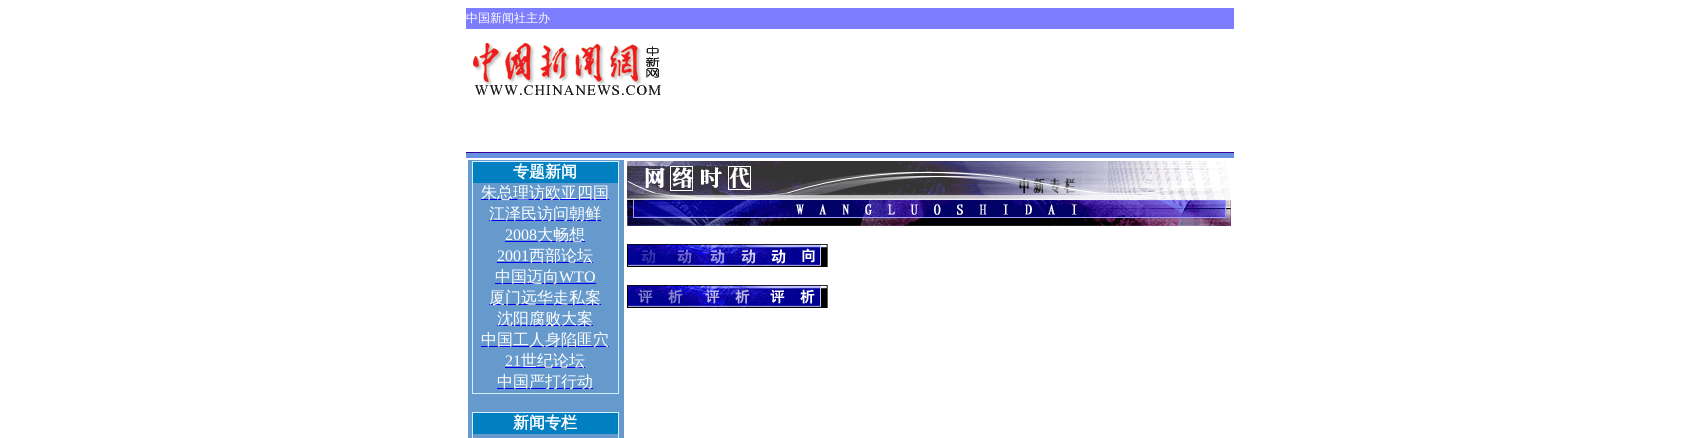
#include <cairo/cairo.h>
#include <math.h>
#include <stddef.h>

static cairo_t *cr;

static void use_color(int r, int g, int b) {
  cairo_set_source_rgb(cr, r / 255.0, g / 255.0, b / 255.0);
}

static void text(double x, double y, const char *s, const char *family, double size, int italic, int bold, int r, int g, int b) {
  cairo_select_font_face(cr, family, italic ? CAIRO_FONT_SLANT_ITALIC : CAIRO_FONT_SLANT_NORMAL,
    bold ? CAIRO_FONT_WEIGHT_BOLD : CAIRO_FONT_WEIGHT_NORMAL);
  cairo_set_font_size(cr, size);
  use_color(r, g, b);
  cairo_move_to(cr, x, y);
  cairo_show_text(cr, s);
}

static void box(double x, double y, double w, double h, int r, int g, int b) {
  use_color(r, g, b);
  cairo_rectangle(cr, x, y, w, h);
  cairo_fill(cr);
}

static void picture(const char *path, double x, double y, double w, double h) {
  cairo_surface_t *image = cairo_image_surface_create_from_png(path);
  cairo_save(cr);
  cairo_set_source_surface(cr, image, x, y);
  cairo_rectangle(cr, x, y, w, h);
  cairo_fill(cr);
  cairo_restore(cr);
  cairo_surface_destroy(image);
}

static void draw(void) {
  use_color(255, 255, 255);
  cairo_paint(cr);
  box(466, 8, 768, 21, 125, 125, 255);
  picture("img_01.png", 473, 43, 188, 52);
  box(466, 152, 768, 1, 51, 0, 153);
  box(466, 153, 768, 5, 105, 145, 226);
  box(468, 160, 156, 278, 102, 153, 204);
  box(472, 161, 147, 233, 210, 240, 255);
  box(473, 183, 145, 210, 102, 153, 204);
  box(473, 162, 145, 21, 0, 128, 192);
  box(481, 199, 128, 1, 0, 0, 238);
  box(489, 220, 112, 1, 0, 0, 238);
  box(505, 241, 80, 1, 0, 0, 238);
  box(497, 262, 96, 1, 0, 0, 238);
  box(495, 283, 101, 1, 0, 0, 238);
  box(489, 304, 112, 1, 0, 0, 238);
  box(497, 325, 96, 1, 0, 0, 238);
  box(481, 346, 128, 1, 0, 0, 238);
  box(505, 367, 80, 1, 0, 0, 238);
  box(497, 388, 96, 1, 0, 0, 238);
  box(472, 412, 147, 26, 210, 240, 255);
  box(473, 434, 145, 4, 102, 153, 204);
  box(473, 413, 145, 21, 0, 128, 192);
  picture("img_02.png", 627, 161, 604, 65);
  picture("img_03.png", 627, 244, 201, 23);
  picture("img_04.png", 627, 285, 201, 23);
  text(466, 22, "中国新闻社主办", "WenQuanYi Zen Hei Medium", 12, 0, 0, 255, 255, 255);
  text(513, 177, "专题新闻", "WenQuanYi Zen Hei", 16, 0, 1, 255, 255, 255);
  text(481, 198, "朱总理访欧亚四国", "WenQuanYi Zen Hei Medium", 16, 0, 0, 255, 255, 255);
  text(489, 219, "江泽民访问朝鲜", "WenQuanYi Zen Hei Medium", 16, 0, 0, 255, 255, 255);
  text(505, 240, "2008", "Liberation Serif", 16, 0, 0, 255, 255, 255);
  text(537, 240, "大畅想", "WenQuanYi Zen Hei Medium", 16, 0, 0, 255, 255, 255);
  text(497, 261, "2001", "Liberation Serif", 16, 0, 0, 255, 255, 255);
  text(529, 261, "西部论坛", "WenQuanYi Zen Hei Medium", 16, 0, 0, 255, 255, 255);
  text(495, 282, "中国迈向", "WenQuanYi Zen Hei Medium", 16, 0, 0, 255, 255, 255);
  text(559, 282, "WTO", "Liberation Serif", 16, 0, 0, 255, 255, 255);
  text(489, 303, "厦门远华走私案", "WenQuanYi Zen Hei Medium", 16, 0, 0, 255, 255, 255);
  text(497, 324, "沈阳腐败大案", "WenQuanYi Zen Hei Medium", 16, 0, 0, 255, 255, 255);
  text(481, 345, "中国工人身陷匪穴", "WenQuanYi Zen Hei Medium", 16, 0, 0, 255, 255, 255);
  text(505, 366, "21", "Liberation Serif", 16, 0, 0, 255, 255, 255);
  text(521, 366, "世纪论坛", "WenQuanYi Zen Hei Medium", 16, 0, 0, 255, 255, 255);
  text(497, 387, "中国严打行动", "WenQuanYi Zen Hei Medium", 16, 0, 0, 255, 255, 255);
  text(513, 428, "新闻专栏", "WenQuanYi Zen Hei", 16, 0, 1, 255, 255, 255);
}

int main(void) {
  cairo_surface_t *surface = cairo_image_surface_create(CAIRO_FORMAT_RGB24, 1699, 438);
  cr = cairo_create(surface);
  cairo_font_options_t *options = cairo_font_options_create();
  cairo_font_options_set_hint_metrics(options, CAIRO_HINT_METRICS_OFF);
  cairo_font_options_set_hint_style(options, CAIRO_HINT_STYLE_NONE);
  cairo_set_font_options(cr, options);
  cairo_set_miter_limit(cr, 4);
  draw();
  cairo_surface_write_to_png(surface, "out.png");
  cairo_font_options_destroy(options);
  cairo_destroy(cr);
  cairo_surface_destroy(surface);
  return 0;
}
